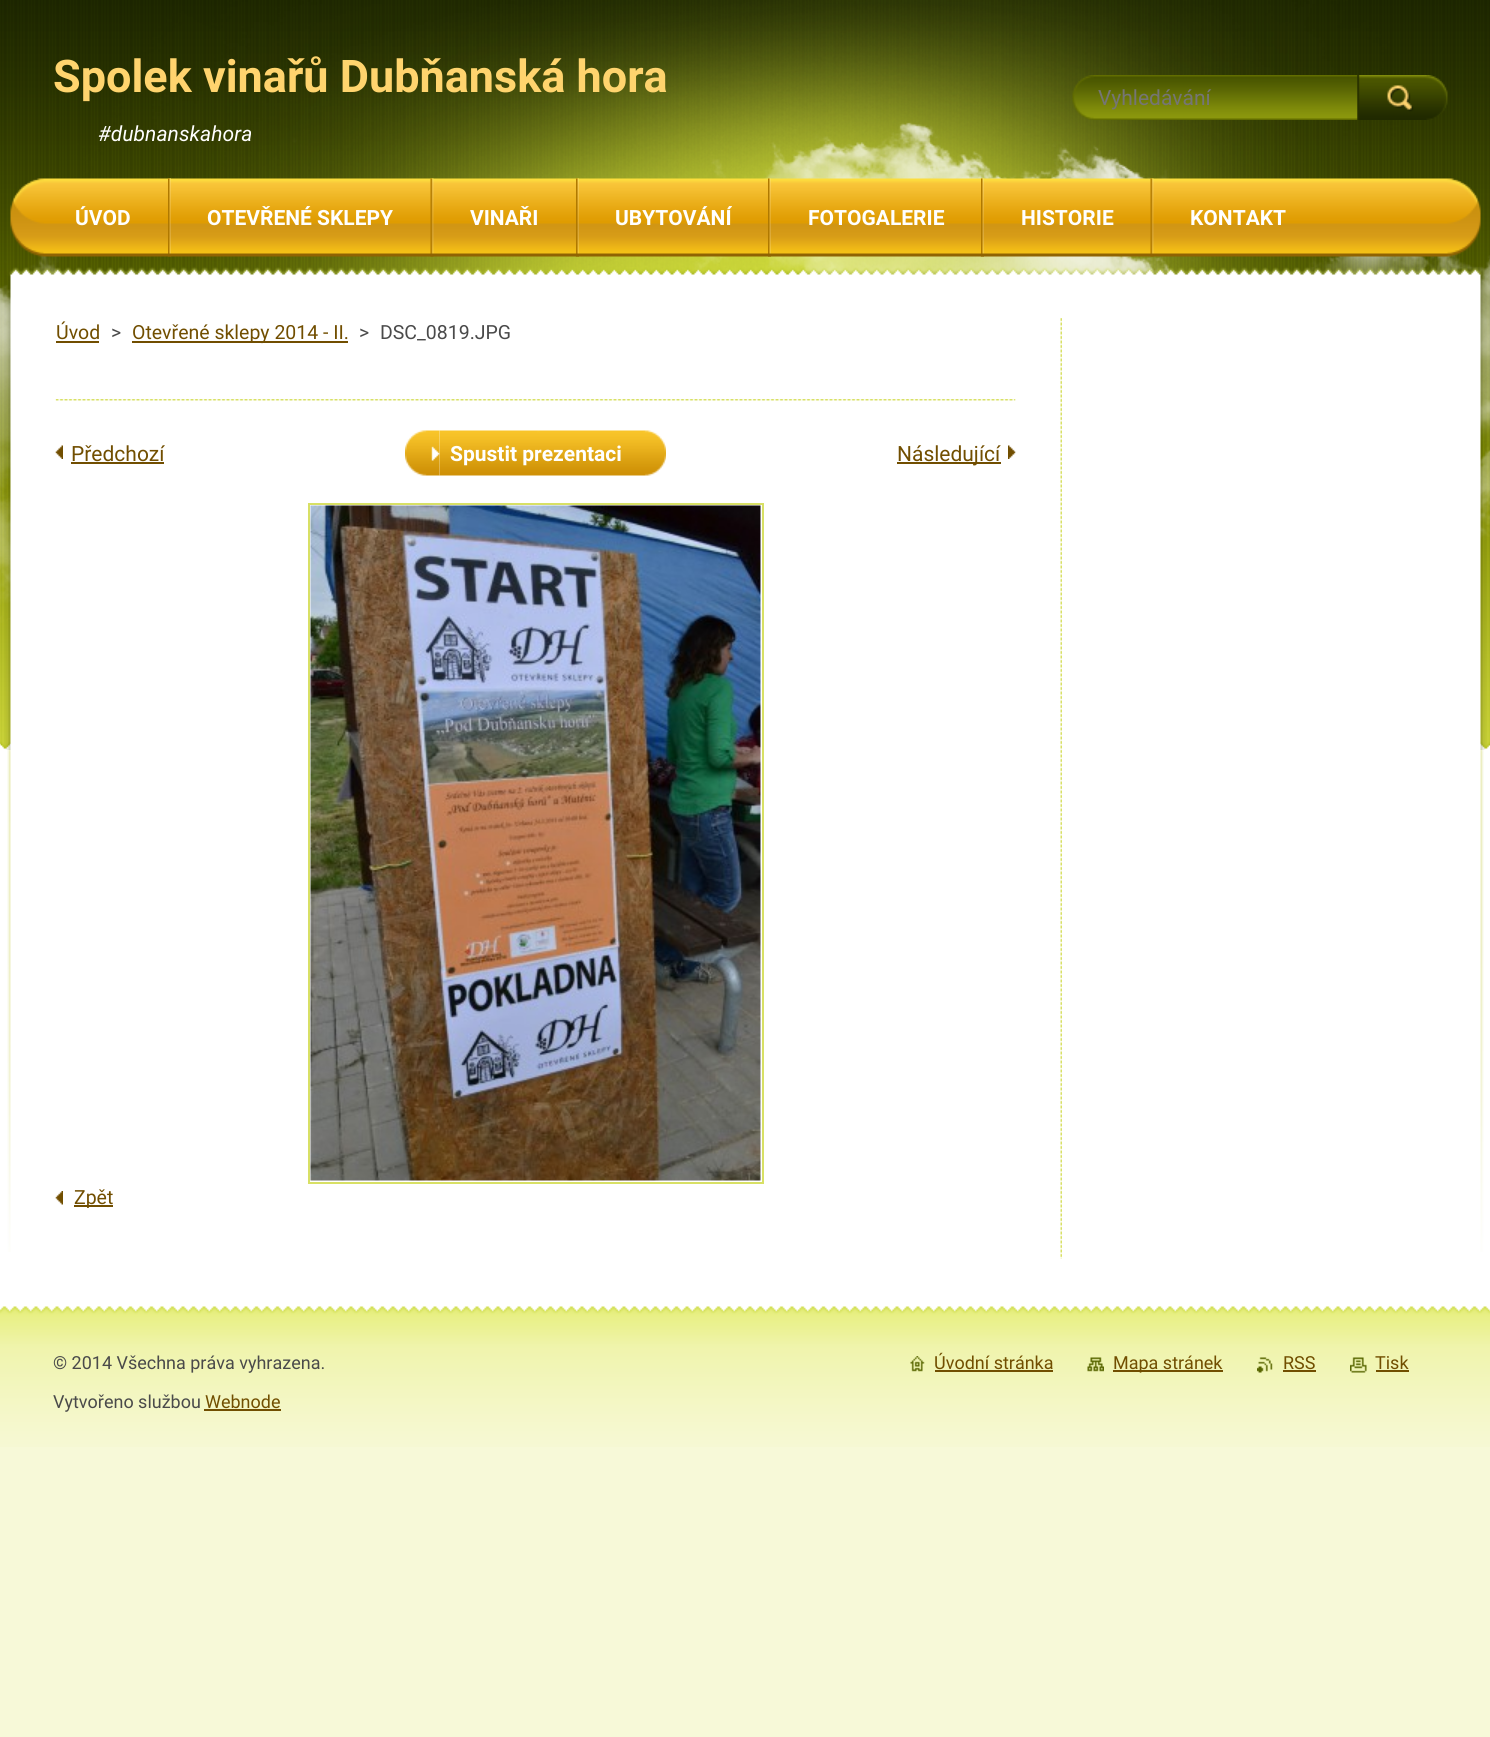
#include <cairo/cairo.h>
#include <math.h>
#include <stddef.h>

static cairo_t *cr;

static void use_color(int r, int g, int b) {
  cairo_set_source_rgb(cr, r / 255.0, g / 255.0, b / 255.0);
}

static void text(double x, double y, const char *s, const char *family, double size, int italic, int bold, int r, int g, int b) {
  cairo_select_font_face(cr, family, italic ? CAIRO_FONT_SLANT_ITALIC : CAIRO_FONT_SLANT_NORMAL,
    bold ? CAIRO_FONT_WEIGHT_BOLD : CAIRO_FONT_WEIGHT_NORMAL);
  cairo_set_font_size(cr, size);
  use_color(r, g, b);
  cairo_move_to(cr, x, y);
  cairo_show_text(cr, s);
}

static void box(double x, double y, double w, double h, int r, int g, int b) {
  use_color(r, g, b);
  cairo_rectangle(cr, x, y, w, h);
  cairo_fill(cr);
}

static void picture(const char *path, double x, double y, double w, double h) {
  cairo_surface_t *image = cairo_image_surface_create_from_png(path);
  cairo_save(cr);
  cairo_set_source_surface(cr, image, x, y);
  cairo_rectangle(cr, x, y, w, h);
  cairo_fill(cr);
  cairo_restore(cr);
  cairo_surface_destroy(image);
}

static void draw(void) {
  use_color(247, 249, 216);
  cairo_paint(cr);
  box(0, 748, 1490, 559, 255, 255, 255);
  picture("img_01.png", 0, 0, 1490, 749);
  picture("img_02.png", 0, 0, 1490, 750);
  picture("img_03.png", 1072, 75, 286, 45);
  picture("img_04.png", 1357, 75, 91, 45);
  picture("img_05.png", 10, 178, 1471, 79);
  picture("img_06.png", 168, 178, 3, 79);
  picture("img_07.png", 430, 178, 4, 79);
  picture("img_08.png", 576, 178, 3, 79);
  picture("img_09.png", 768, 178, 3, 79);
  picture("img_10.png", 981, 178, 3, 79);
  picture("img_11.png", 1150, 178, 4, 79);
  picture("img_12.png", 7, 750, 1477, 502);
  picture("img_13.png", 1060, 318, 2, 941);
  box(56, 341, 43, 2, 113, 78, 0);
  box(132, 341, 216, 2, 113, 78, 0);
  picture("img_14.png", 55, 399, 961, 2);
  picture("img_15.png", 55, 445, 8, 14);
  box(71, 462, 93, 2, 113, 78, 0);
  picture("img_16.png", 405, 430, 35, 46);
  picture("img_17.png", 439, 430, 227, 46);
  box(897, 462, 104, 2, 113, 78, 0);
  picture("img_18.png", 1008, 445, 8, 14);
  cairo_rectangle(cr, 309, 504, 454, 679);
  use_color(216, 224, 101);
  cairo_stroke(cr);
  picture("img_19.png", 310, 505, 451, 676);
  picture("img_20.png", 55, 1191, 8, 14);
  box(74, 1205, 39, 2, 113, 78, 0);
  picture("img_21.png", 0, 1306, 1490, 141);
  box(204, 1409, 77, 2, 113, 78, 0);
  picture("img_22.png", 910, 1356, 15, 16);
  box(935, 1370, 118, 2, 113, 78, 0);
  picture("img_23.png", 1087, 1357, 17, 15);
  box(1113, 1370, 110, 2, 113, 78, 0);
  picture("img_24.png", 1257, 1357, 16, 16);
  box(1283, 1370, 33, 2, 113, 78, 0);
  picture("img_25.png", 1350, 1357, 17, 16);
  box(1376, 1370, 33, 2, 113, 78, 0);
  text(53, 92, "Spolek vinařů Dubňanská hora", "Roboto", 45, 0, 1, 255, 212, 110);
  text(98, 141, "#dubnanskahora", "Roboto", 21, 1, 0, 255, 255, 255);
  text(1098, 105, "Vyhledávání", "Roboto", 21, 0, 0, 117, 117, 117);
  text(75, 225, "ÚVOD", "Roboto", 21, 0, 1, 255, 255, 255);
  text(207, 225, "OTEVŘENÉ SKLEPY", "Roboto", 21, 0, 1, 255, 255, 255);
  text(470, 225, "VINAŘI", "Roboto", 21, 0, 1, 255, 255, 255);
  text(615, 225, "UBYTOVÁNÍ", "Roboto", 21, 0, 1, 255, 255, 255);
  text(808, 225, "FOTOGALERIE", "Roboto", 21, 0, 1, 255, 255, 255);
  text(1021, 225, "HISTORIE", "Roboto", 21, 0, 1, 255, 255, 255);
  text(1190, 225, "KONTAKT", "Roboto", 21, 0, 1, 255, 255, 255);
  text(56, 339, "Úvod", "Roboto", 19.5, 0, 0, 113, 78, 0);
  text(111, 339, ">", "Roboto", 19.5, 0, 0, 74, 74, 74);
  text(132, 339, "Otevřené sklepy 2014 - II.", "Roboto", 19.5, 0, 0, 113, 78, 0);
  text(359, 339, ">", "Roboto", 19.5, 0, 0, 74, 74, 74);
  text(380, 339, "DSC_0819.JPG", "Roboto", 19.5, 0, 0, 74, 74, 74);
  text(71, 461, "Předchozí", "Roboto", 21, 0, 0, 113, 78, 0);
  text(450, 461, "Spustit prezentaci", "Roboto", 21, 0, 1, 255, 255, 255);
  text(897, 461, "Následující", "Roboto", 21, 0, 0, 113, 78, 0);
  text(74, 1204, "Zpět", "Roboto", 19.5, 0, 0, 113, 78, 0);
  text(53, 1369, "© 2014 Všechna práva vyhrazena.", "Roboto", 18, 0, 0, 74, 74, 74);
  text(53, 1408, "Vytvořeno službou", "Roboto", 18, 0, 0, 74, 74, 74);
  text(205, 1408, "Webnode", "Roboto", 18, 0, 0, 113, 78, 0);
  text(934, 1369, "Úvodní stránka", "Roboto", 18, 0, 0, 113, 78, 0);
  text(1113, 1369, "Mapa stránek", "Roboto", 18, 0, 0, 113, 78, 0);
  text(1283, 1369, "RSS", "Roboto", 18, 0, 0, 113, 78, 0);
  text(1375, 1369, "Tisk", "Roboto", 18, 0, 0, 113, 78, 0);
}

int main(void) {
  cairo_surface_t *surface = cairo_image_surface_create(CAIRO_FORMAT_RGB24, 1490, 1737);
  cr = cairo_create(surface);
  cairo_font_options_t *options = cairo_font_options_create();
  cairo_font_options_set_hint_metrics(options, CAIRO_HINT_METRICS_OFF);
  cairo_font_options_set_hint_style(options, CAIRO_HINT_STYLE_NONE);
  cairo_set_font_options(cr, options);
  cairo_set_miter_limit(cr, 4);
  draw();
  cairo_surface_write_to_png(surface, "out.png");
  cairo_font_options_destroy(options);
  cairo_destroy(cr);
  cairo_surface_destroy(surface);
  return 0;
}
